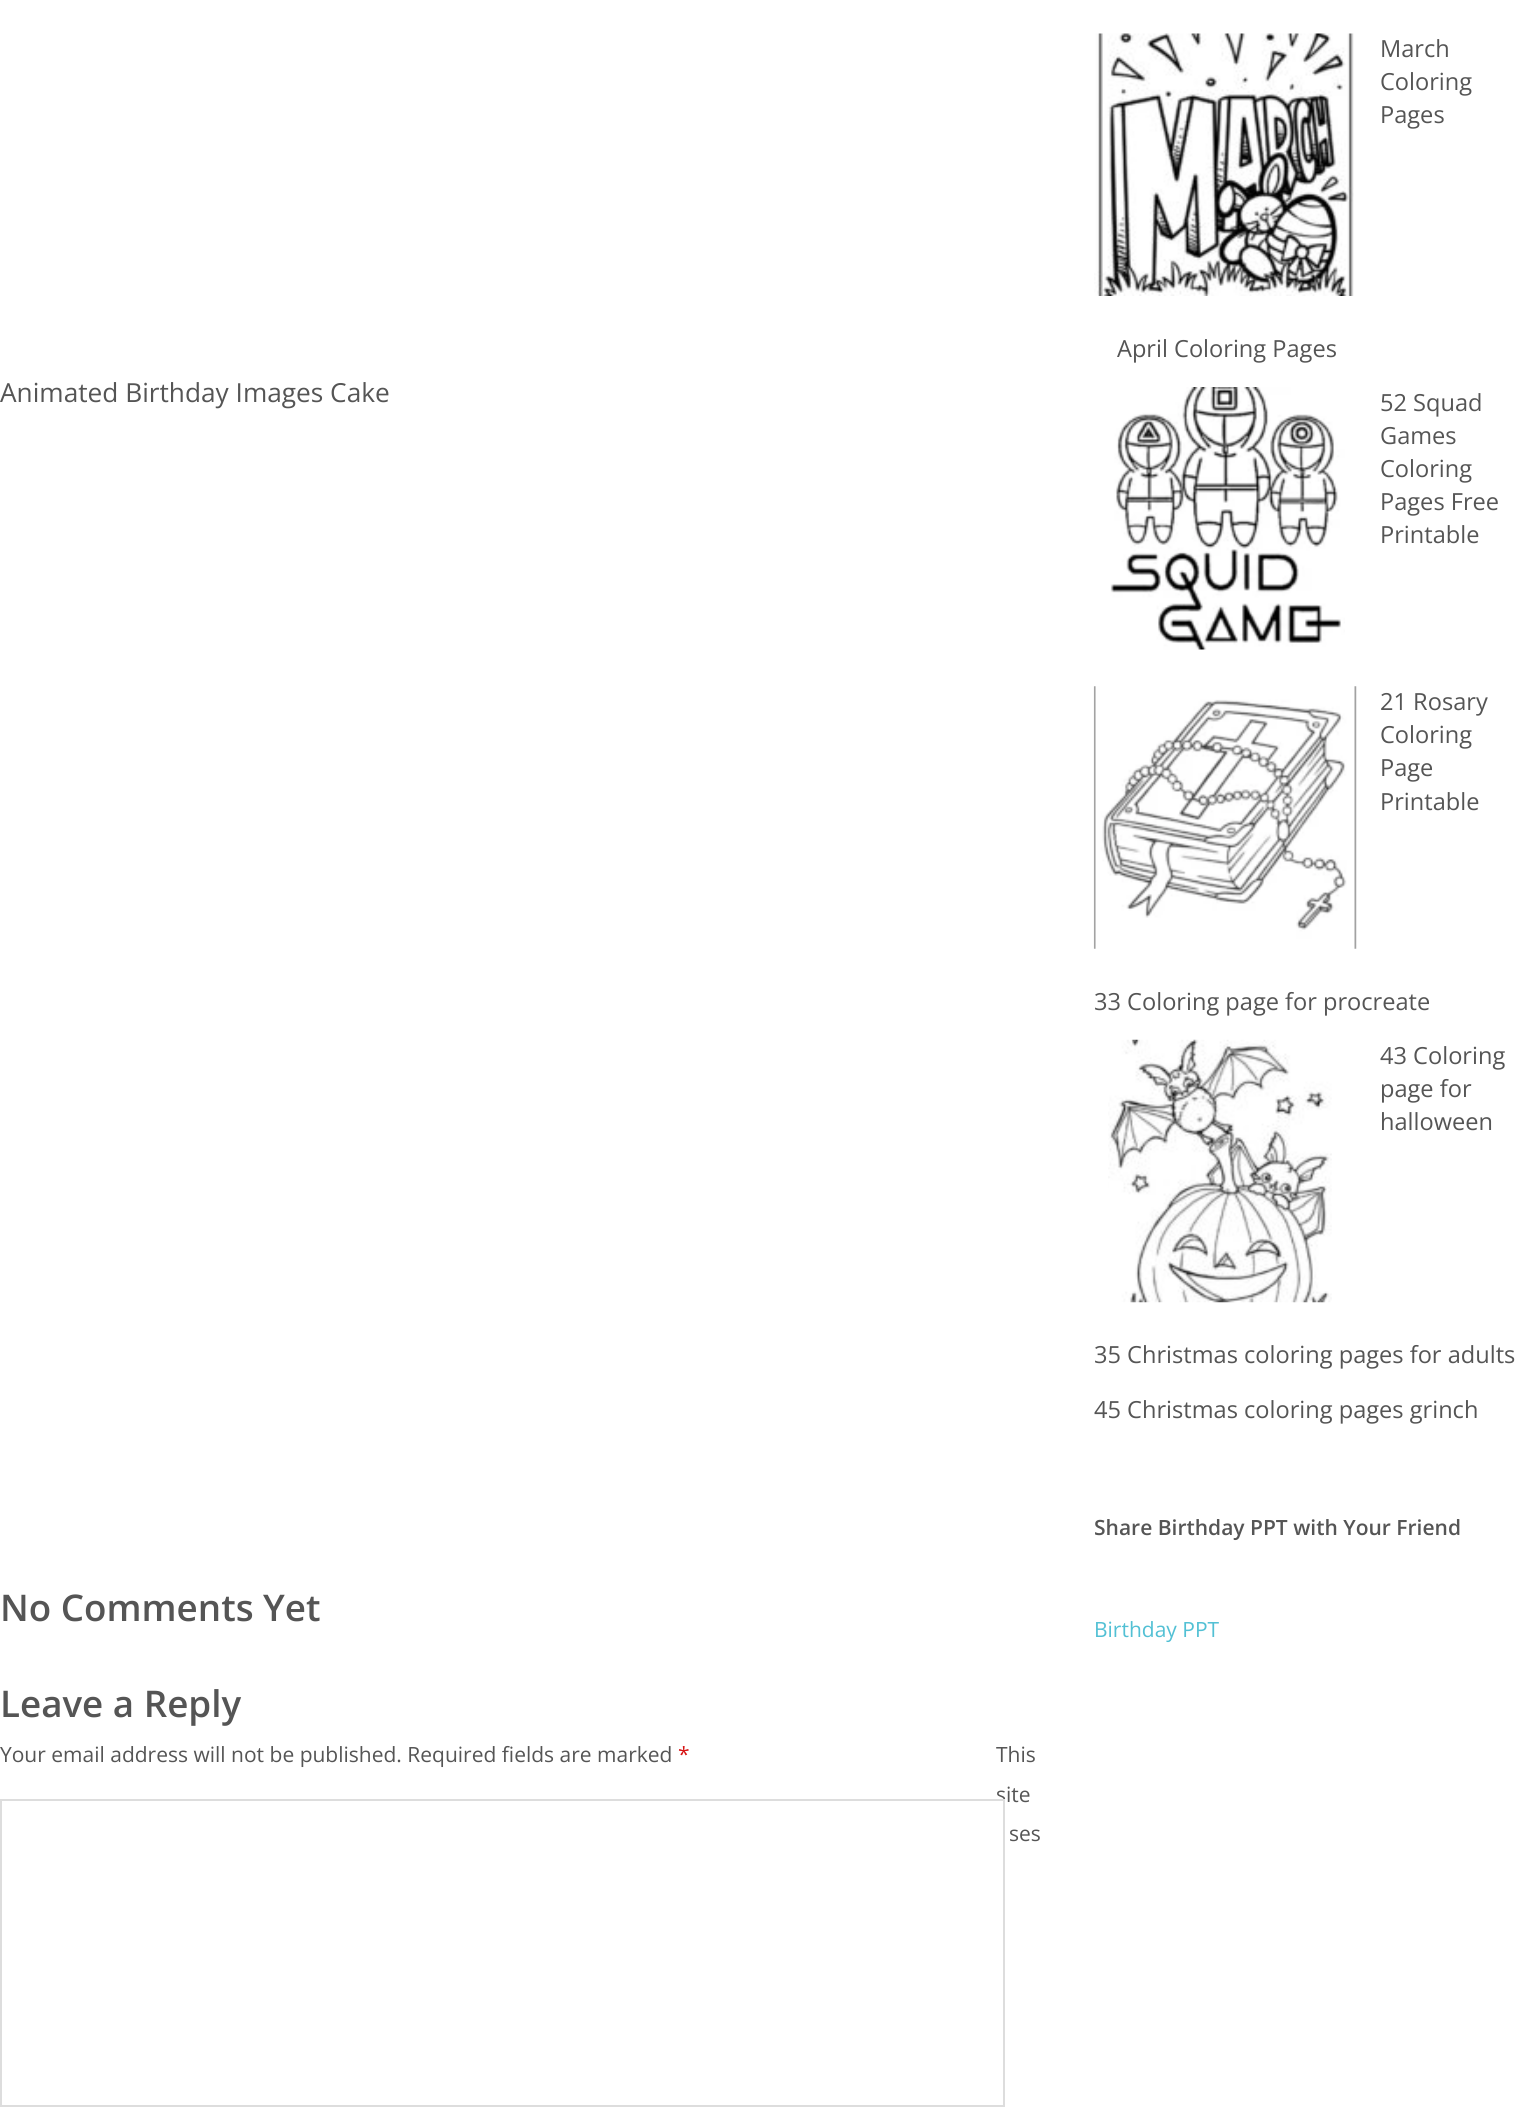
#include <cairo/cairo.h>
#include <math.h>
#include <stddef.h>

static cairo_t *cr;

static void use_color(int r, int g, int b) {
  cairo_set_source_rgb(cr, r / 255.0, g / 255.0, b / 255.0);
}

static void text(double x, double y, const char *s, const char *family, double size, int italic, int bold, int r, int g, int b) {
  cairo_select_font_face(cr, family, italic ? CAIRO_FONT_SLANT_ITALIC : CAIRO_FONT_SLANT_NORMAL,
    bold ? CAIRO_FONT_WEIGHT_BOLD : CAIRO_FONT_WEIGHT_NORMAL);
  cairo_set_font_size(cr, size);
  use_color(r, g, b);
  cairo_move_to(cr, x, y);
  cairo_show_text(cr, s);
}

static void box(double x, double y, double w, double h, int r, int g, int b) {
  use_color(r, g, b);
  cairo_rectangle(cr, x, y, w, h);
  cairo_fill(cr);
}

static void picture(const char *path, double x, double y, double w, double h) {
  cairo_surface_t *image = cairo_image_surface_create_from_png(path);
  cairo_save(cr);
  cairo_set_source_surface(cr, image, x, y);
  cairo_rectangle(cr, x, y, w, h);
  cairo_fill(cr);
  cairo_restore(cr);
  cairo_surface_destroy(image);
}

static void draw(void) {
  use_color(255, 255, 255);
  cairo_paint(cr);
  picture("img_01.png", 1094, 33, 260, 263);
  picture("img_02.png", 1110, 387, 235, 263);
  picture("img_03.png", 1093, 686, 264, 263);
  picture("img_04.png", 1108, 1039, 224, 264);
  text(0, 402, "Animated Birthday Images Cake", "Open Sans", 26.25, 0, 0, 85, 85, 85);
  text(0, 1621, "No Comments Yet", "Open Sans SemiBold", 36.75, 0, 0, 85, 85, 85);
  text(0, 1717, "Leave a Reply", "Open Sans SemiBold", 36.75, 0, 0, 85, 85, 85);
  text(0, 1762, "Your email address will not be published. Required fields are marked", "Open Sans", 21, 0, 0, 85, 85, 85);
  text(678, 1762, "*", "Open Sans", 21, 0, 0, 214, 17, 17);
  text(996, 1762, "This", "Open Sans", 21, 0, 0, 85, 85, 85);
  text(996, 1802, "site", "Open Sans", 21, 0, 0, 85, 85, 85);
  box(996, 1801, 7, 2, 255, 255, 255);
  cairo_rectangle(cr, 1, 1800, 1003, 306);
  use_color(221, 221, 221);
  cairo_stroke(cr);
  text(1009, 1841, "ses", "Open Sans", 21, 0, 0, 85, 85, 85);
  text(1380, 57, "March", "Open Sans", 23.6, 0, 0, 85, 85, 85);
  text(1380, 90, "Coloring", "Open Sans", 23.6, 0, 0, 85, 85, 85);
  text(1380, 123, "Pages", "Open Sans", 23.6, 0, 0, 85, 85, 85);
  text(1117, 357, "April Coloring Pages", "Open Sans", 23.6, 0, 0, 85, 85, 85);
  text(1380, 411, "52 Squad", "Open Sans", 23.6, 0, 0, 85, 85, 85);
  text(1380, 444, "Games", "Open Sans", 23.6, 0, 0, 85, 85, 85);
  text(1380, 477, "Coloring", "Open Sans", 23.6, 0, 0, 85, 85, 85);
  text(1380, 510, "Pages Free", "Open Sans", 23.6, 0, 0, 85, 85, 85);
  text(1380, 543, "Printable", "Open Sans", 23.6, 0, 0, 85, 85, 85);
  text(1380, 710, "21 Rosary", "Open Sans", 23.6, 0, 0, 85, 85, 85);
  text(1380, 743, "Coloring", "Open Sans", 23.6, 0, 0, 85, 85, 85);
  text(1380, 776, "Page", "Open Sans", 23.6, 0, 0, 85, 85, 85);
  text(1380, 810, "Printable", "Open Sans", 23.6, 0, 0, 85, 85, 85);
  text(1094, 1010, "33 Coloring page for procreate", "Open Sans", 23.6, 0, 0, 85, 85, 85);
  text(1380, 1064, "43 Coloring", "Open Sans", 23.6, 0, 0, 85, 85, 85);
  text(1380, 1097, "page for", "Open Sans", 23.6, 0, 0, 85, 85, 85);
  text(1380, 1130, "halloween", "Open Sans", 23.6, 0, 0, 85, 85, 85);
  text(1094, 1363, "35 Christmas coloring pages for adults", "Open Sans", 23.6, 0, 0, 85, 85, 85);
  text(1094, 1418, "45 Christmas coloring pages grinch", "Open Sans", 23.6, 0, 0, 85, 85, 85);
  text(1094, 1535, "Share Birthday PPT with Your Friend", "Open Sans SemiBold", 21, 0, 0, 85, 85, 85);
  text(1094, 1637, "Birthday PPT", "Open Sans", 21, 0, 0, 82, 192, 212);
}

int main(void) {
  cairo_surface_t *surface = cairo_image_surface_create(CAIRO_FORMAT_RGB24, 1518, 2109);
  cr = cairo_create(surface);
  cairo_font_options_t *options = cairo_font_options_create();
  cairo_font_options_set_hint_metrics(options, CAIRO_HINT_METRICS_OFF);
  cairo_font_options_set_hint_style(options, CAIRO_HINT_STYLE_NONE);
  cairo_set_font_options(cr, options);
  cairo_set_miter_limit(cr, 4);
  draw();
  cairo_surface_write_to_png(surface, "out.png");
  cairo_font_options_destroy(options);
  cairo_destroy(cr);
  cairo_surface_destroy(surface);
  return 0;
}
